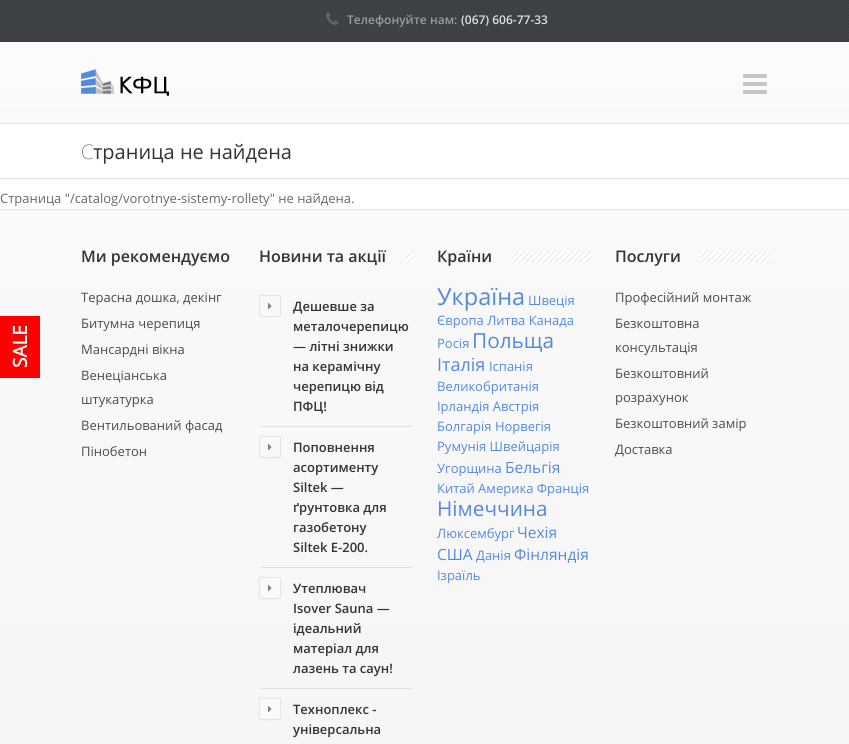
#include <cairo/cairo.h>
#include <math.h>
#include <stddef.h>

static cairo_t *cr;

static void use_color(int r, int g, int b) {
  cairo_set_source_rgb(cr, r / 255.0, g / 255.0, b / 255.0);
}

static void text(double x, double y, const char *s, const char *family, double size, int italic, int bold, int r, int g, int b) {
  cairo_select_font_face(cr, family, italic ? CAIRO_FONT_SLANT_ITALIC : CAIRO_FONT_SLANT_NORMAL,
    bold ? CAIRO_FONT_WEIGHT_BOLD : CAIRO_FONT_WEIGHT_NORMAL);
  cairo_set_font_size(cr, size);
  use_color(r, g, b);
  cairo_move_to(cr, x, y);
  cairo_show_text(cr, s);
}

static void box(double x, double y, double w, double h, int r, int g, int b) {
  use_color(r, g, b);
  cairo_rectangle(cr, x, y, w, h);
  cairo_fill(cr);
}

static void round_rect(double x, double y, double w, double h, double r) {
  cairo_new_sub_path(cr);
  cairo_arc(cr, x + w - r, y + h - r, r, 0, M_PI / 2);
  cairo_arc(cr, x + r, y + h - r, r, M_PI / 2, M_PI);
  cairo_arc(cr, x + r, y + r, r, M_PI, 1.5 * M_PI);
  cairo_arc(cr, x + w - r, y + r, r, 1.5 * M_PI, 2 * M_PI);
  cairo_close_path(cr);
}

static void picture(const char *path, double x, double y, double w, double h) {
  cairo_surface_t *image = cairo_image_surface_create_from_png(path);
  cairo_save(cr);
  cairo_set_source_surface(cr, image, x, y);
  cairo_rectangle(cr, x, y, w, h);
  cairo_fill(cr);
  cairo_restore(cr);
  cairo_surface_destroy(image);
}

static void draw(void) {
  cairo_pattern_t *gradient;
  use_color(255, 255, 255);
  cairo_paint(cr);
  picture("img_01.png", 0, 0, 849, 42);
  picture("img_02.png", 326, 12, 13, 13);
  gradient = cairo_pattern_create_linear(425, 42, 425, 123);
  cairo_pattern_add_color_stop_rgba(gradient, 0.02, 0.988, 0.988, 0.988, 1);
  cairo_pattern_add_color_stop_rgba(gradient, 1, 0.976, 0.976, 0.976, 1);
  cairo_set_source(cr, gradient);
  cairo_pattern_destroy(gradient);
  cairo_rectangle(cr, 0, 42, 849, 81);
  cairo_fill(cr);
  picture("img_03.png", 81, 69, 88, 27);
  picture("img_04.png", 743, 74, 24, 20);
  box(0, 123, 849, 1, 228, 228, 228);
  box(0, 178, 849, 1, 228, 228, 228);
  gradient = cairo_pattern_create_linear(424, 210, 425, 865);
  cairo_pattern_add_color_stop_rgba(gradient, 0.02, 0.976, 0.976, 0.976, 1);
  cairo_pattern_add_color_stop_rgba(gradient, 1, 0.961, 0.961, 0.961, 1);
  cairo_set_source(cr, gradient);
  cairo_pattern_destroy(gradient);
  cairo_rectangle(cr, 0, 210, 849, 534);
  cairo_fill(cr);
  box(0, 316, 40, 62, 255, 0, 0);
  box(0, 209, 849, 1, 226, 226, 226);
  picture("img_05.png", 406, 251, 7, 12);
  box(261, 426, 151, 1, 222, 225, 226);
  cairo_new_path(cr);
  cairo_move_to(cr, 280, 316);
  cairo_curve_to(cr, 279.5, 317, 260.5, 317, 260, 316);
  use_color(223, 223, 223);
  cairo_set_line_width(cr, 1);
  cairo_stroke(cr);
  cairo_new_path(cr);
  cairo_move_to(cr, 260, 316);
  cairo_curve_to(cr, 259, 315, 259.5, 307.5, 259.5, 306);
  cairo_curve_to(cr, 259.5, 293, 257, 295.5, 270, 295.5);
  cairo_curve_to(cr, 283, 295.5, 280.5, 293, 280.5, 306);
  cairo_curve_to(cr, 280.5, 307.5, 281, 315, 280, 316);
  use_color(226, 226, 226);
  cairo_stroke(cr);
  picture("img_06.png", 268, 303, 4, 7);
  box(261, 567, 151, 1, 222, 225, 226);
  cairo_new_path(cr);
  cairo_move_to(cr, 280, 457);
  cairo_curve_to(cr, 279.5, 458, 260.5, 458, 260, 457);
  use_color(223, 223, 223);
  cairo_stroke(cr);
  cairo_new_path(cr);
  cairo_move_to(cr, 260, 457);
  cairo_curve_to(cr, 259, 456, 259.5, 448.5, 259.5, 447);
  cairo_curve_to(cr, 259.5, 434, 257, 436.5, 270, 436.5);
  cairo_curve_to(cr, 283, 436.5, 280.5, 434, 280.5, 447);
  cairo_curve_to(cr, 280.5, 448.5, 281, 456, 280, 457);
  use_color(226, 226, 226);
  cairo_stroke(cr);
  picture("img_06.png", 268, 444, 4, 7);
  box(261, 688, 151, 1, 222, 225, 226);
  use_color(250, 250, 250);
  round_rect(259, 577, 22, 22, 2);
  cairo_fill(cr);
  cairo_new_path(cr);
  cairo_move_to(cr, 280, 598);
  cairo_curve_to(cr, 279.5, 599, 260.5, 599, 260, 598);
  use_color(223, 223, 223);
  cairo_stroke(cr);
  cairo_new_path(cr);
  cairo_move_to(cr, 260, 598);
  cairo_curve_to(cr, 259, 597, 259.5, 589.5, 259.5, 588);
  cairo_curve_to(cr, 259.5, 575, 257, 577.5, 270, 577.5);
  cairo_curve_to(cr, 283, 577.5, 280.5, 575, 280.5, 588);
  cairo_curve_to(cr, 280.5, 589.5, 281, 597, 280, 598);
  use_color(226, 226, 226);
  cairo_stroke(cr);
  picture("img_06.png", 268, 585, 4, 7);
  use_color(250, 250, 250);
  round_rect(259, 698, 22, 22, 2);
  cairo_fill(cr);
  cairo_new_path(cr);
  cairo_move_to(cr, 280, 719);
  cairo_curve_to(cr, 279.5, 720, 260.5, 720, 260, 719);
  use_color(223, 223, 223);
  cairo_stroke(cr);
  cairo_new_path(cr);
  cairo_move_to(cr, 260, 719);
  cairo_curve_to(cr, 259, 718, 259.5, 710.5, 259.5, 709);
  cairo_curve_to(cr, 259.5, 696, 257, 698.5, 270, 698.5);
  cairo_curve_to(cr, 283, 698.5, 280.5, 696, 280.5, 709);
  cairo_curve_to(cr, 280.5, 710.5, 281, 718, 280, 719);
  use_color(226, 226, 226);
  cairo_stroke(cr);
  picture("img_06.png", 268, 706, 4, 7);
  picture("img_07.png", 512, 251, 79, 12);
  picture("img_08.png", 700, 251, 69, 12);
  text(347, 24, "Телефонуйте нам:", "Open Sans SemiBold", 12, 0, 0, 155, 155, 155);
  text(461, 24, "(067) 606-77-33", "Open Sans SemiBold", 12, 0, 0, 223, 223, 223);
  text(81, 159, "С", "Noto Sans Thin", 20, 0, 0, 49, 53, 56);
  text(93, 159, "траница не найдена", "Open Sans", 20, 0, 0, 49, 53, 56);
  text(0, 203, "Страница \"/catalog/vorotnye-sistemy-rollety\" не найдена.", "Open Sans", 13, 0, 0, 101, 104, 109);
  cairo_save(cr);
  cairo_translate(cr, 27, 368);
  cairo_rotate(cr, -90 * M_PI / 180);
  text(0, 0, "SALE", "Open Sans", 19, 0, 1, 255, 255, 255);
  cairo_restore(cr);
  text(81, 262, "Ми рекомендуємо", "Open Sans SemiBold", 16, 0, 0, 49, 53, 56);
  text(81, 302, "Терасна дошка, декінг", "Open Sans", 13, 0, 0, 74, 76, 76);
  text(81, 328, "Битумна черепиця", "Open Sans", 13, 0, 0, 74, 76, 76);
  text(81, 354, "Мансардні вікна", "Open Sans", 13, 0, 0, 74, 76, 76);
  text(81, 380, "Венеціанська", "Open Sans", 13, 0, 0, 74, 76, 76);
  text(81, 404, "штукатурка", "Open Sans", 13, 0, 0, 74, 76, 76);
  text(81, 430, "Вентильований фасад", "Open Sans", 13, 0, 0, 74, 76, 76);
  text(81, 456, "Пінобетон", "Open Sans", 13, 0, 0, 74, 76, 76);
  text(259, 262, "Новини та акції", "Open Sans SemiBold", 16, 0, 0, 49, 53, 56);
  text(293, 311, "Дешевше за", "Open Sans SemiBold", 13, 0, 0, 49, 53, 56);
  text(293, 331, "металочерепицю", "Open Sans SemiBold", 13, 0, 0, 49, 53, 56);
  text(293, 351, "— літні знижки", "Open Sans SemiBold", 13, 0, 0, 49, 53, 56);
  text(293, 371, "на керамічну", "Open Sans SemiBold", 13, 0, 0, 49, 53, 56);
  text(293, 391, "черепицю від", "Open Sans SemiBold", 13, 0, 0, 49, 53, 56);
  text(293, 411, "ПФЦ!", "Open Sans SemiBold", 13, 0, 0, 49, 53, 56);
  text(293, 452, "Поповнення", "Open Sans SemiBold", 13, 0, 0, 49, 53, 56);
  text(293, 472, "асортименту", "Open Sans SemiBold", 13, 0, 0, 49, 53, 56);
  text(293, 492, "Siltek —", "Open Sans SemiBold", 13, 0, 0, 49, 53, 56);
  text(293, 512, "ґрунтовка для", "Open Sans SemiBold", 13, 0, 0, 49, 53, 56);
  text(293, 532, "газобетону", "Open Sans SemiBold", 13, 0, 0, 49, 53, 56);
  text(293, 552, "Siltek E-200.", "Open Sans SemiBold", 13, 0, 0, 49, 53, 56);
  text(293, 593, "Утеплювач", "Open Sans SemiBold", 13, 0, 0, 49, 53, 56);
  text(293, 613, "Isover Sauna —", "Open Sans SemiBold", 13, 0, 0, 49, 53, 56);
  text(293, 633, "ідеальний", "Open Sans SemiBold", 13, 0, 0, 49, 53, 56);
  text(293, 653, "матеріал для", "Open Sans SemiBold", 13, 0, 0, 49, 53, 56);
  text(293, 673, "лазень та саун!", "Open Sans SemiBold", 13, 0, 0, 49, 53, 56);
  text(293, 714, "Техноплекс -", "Open Sans SemiBold", 13, 0, 0, 49, 53, 56);
  text(293, 734, "універсальна", "Open Sans SemiBold", 13, 0, 0, 49, 53, 56);
  text(437, 262, "Країни", "Open Sans SemiBold", 16, 0, 0, 49, 53, 56);
  text(437, 305, "Україна", "Open Sans", 23.5, 0, 0, 84, 137, 222);
  text(528, 305, "Швеція", "Open Sans", 13, 0, 0, 84, 137, 222);
  text(437, 325, "Європа Литва Канада", "Open Sans", 13, 0, 0, 84, 137, 222);
  text(437, 348, "Росія", "Open Sans", 13, 0, 0, 84, 137, 222);
  text(472, 348, "Польща", "Open Sans", 20.75, 0, 0, 84, 137, 222);
  text(437, 371, "Італія", "Open Sans", 18, 0, 0, 84, 137, 222);
  text(489, 371, "Іспанія", "Open Sans", 13, 0, 0, 84, 137, 222);
  text(437, 391, "Великобританія", "Open Sans", 13, 0, 0, 84, 137, 222);
  text(437, 411, "Ірландія Австрія", "Open Sans", 13, 0, 0, 84, 137, 222);
  text(437, 431, "Болгарія Норвегія", "Open Sans", 13, 0, 0, 84, 137, 222);
  text(437, 451, "Румунія Швейцарія", "Open Sans", 13, 0, 0, 84, 137, 222);
  text(437, 473, "Угорщина", "Open Sans", 13, 0, 0, 84, 137, 222);
  text(505, 473, "Бельгія", "Open Sans", 15.5, 0, 0, 84, 137, 222);
  text(437, 493, "Китай Америка Франція", "Open Sans", 13, 0, 0, 84, 137, 222);
  text(437, 516, "Німеччина", "Open Sans", 20.75, 0, 0, 84, 137, 222);
  text(437, 538, "Люксембург", "Open Sans", 13, 0, 0, 84, 137, 222);
  text(517, 538, "Чехія", "Open Sans", 15.5, 0, 0, 84, 137, 222);
  text(437, 560, "США", "Open Sans", 15.5, 0, 0, 84, 137, 222);
  text(476, 560, "Данія", "Open Sans", 13, 0, 0, 84, 137, 222);
  text(514, 560, "Фінляндія", "Open Sans", 15.5, 0, 0, 84, 137, 222);
  text(437, 580, "Ізраїль", "Open Sans", 13, 0, 0, 84, 137, 222);
  text(615, 262, "Послуги", "Open Sans SemiBold", 16, 0, 0, 49, 53, 56);
  text(615, 302, "Професійний монтаж", "Open Sans", 13, 0, 0, 74, 76, 76);
  text(615, 328, "Безкоштовна", "Open Sans", 13, 0, 0, 74, 76, 76);
  text(615, 352, "консультація", "Open Sans", 13, 0, 0, 74, 76, 76);
  text(615, 378, "Безкоштовний", "Open Sans", 13, 0, 0, 74, 76, 76);
  text(615, 402, "розрахунок", "Open Sans", 13, 0, 0, 74, 76, 76);
  text(615, 428, "Безкоштовний замір", "Open Sans", 13, 0, 0, 74, 76, 76);
  cairo_save(cr);
  cairo_rectangle(cr, 615, 438, 154, 24);
  cairo_clip(cr);
  text(615, 454, "Доставка", "Open Sans", 13, 0, 0, 74, 76, 76);
  cairo_restore(cr);
}

int main(void) {
  cairo_surface_t *surface = cairo_image_surface_create(CAIRO_FORMAT_RGB24, 849, 744);
  cr = cairo_create(surface);
  cairo_font_options_t *options = cairo_font_options_create();
  cairo_font_options_set_hint_metrics(options, CAIRO_HINT_METRICS_OFF);
  cairo_font_options_set_hint_style(options, CAIRO_HINT_STYLE_NONE);
  cairo_set_font_options(cr, options);
  cairo_set_miter_limit(cr, 4);
  draw();
  cairo_surface_write_to_png(surface, "out.png");
  cairo_font_options_destroy(options);
  cairo_destroy(cr);
  cairo_surface_destroy(surface);
  return 0;
}
